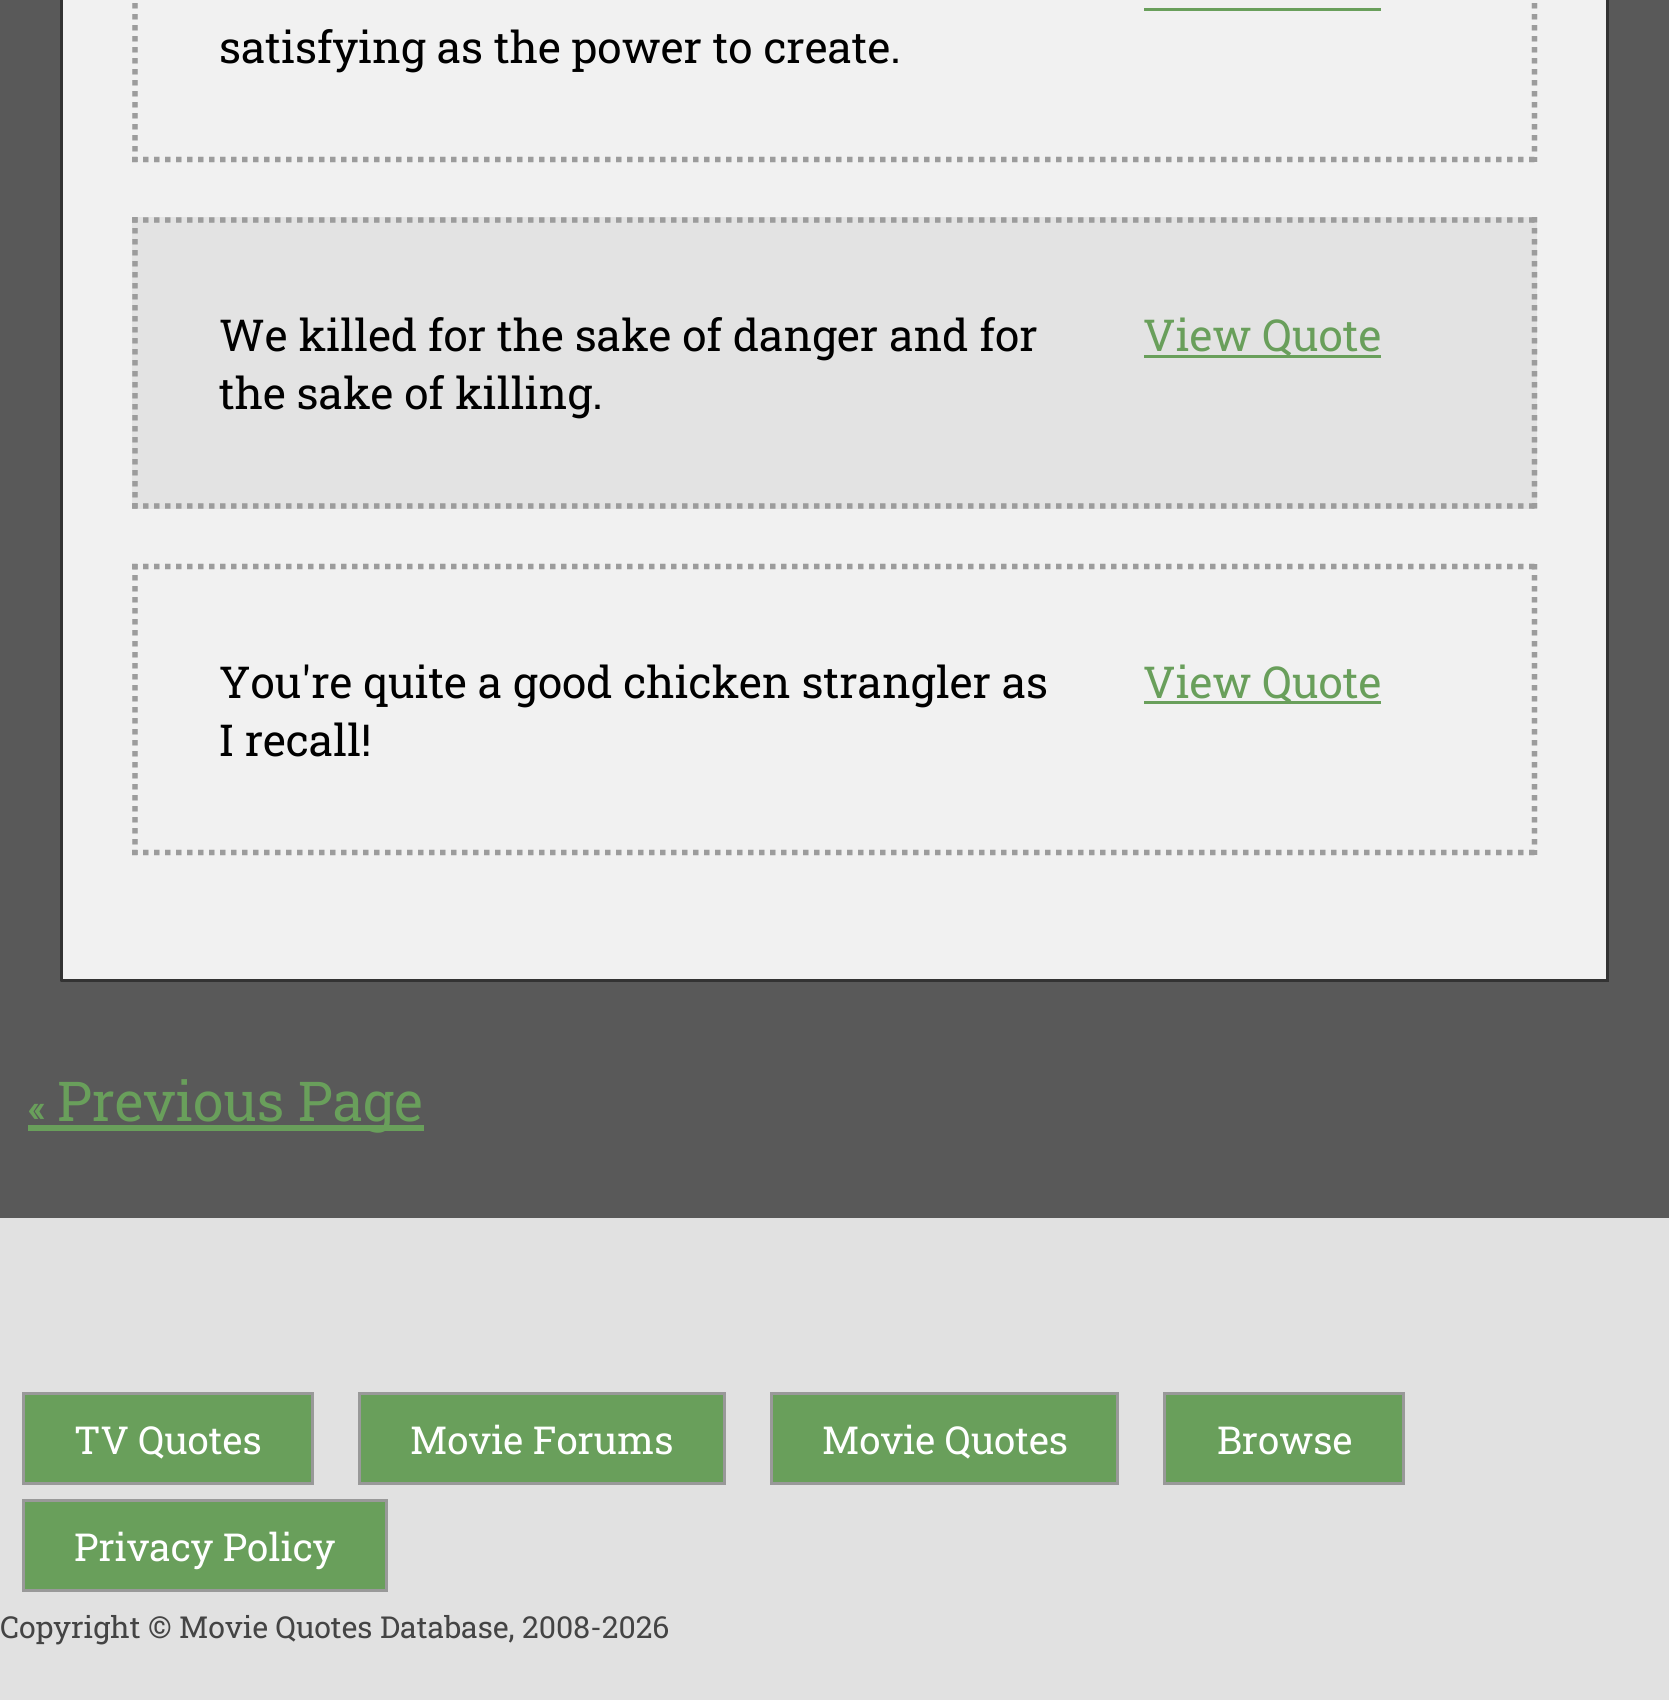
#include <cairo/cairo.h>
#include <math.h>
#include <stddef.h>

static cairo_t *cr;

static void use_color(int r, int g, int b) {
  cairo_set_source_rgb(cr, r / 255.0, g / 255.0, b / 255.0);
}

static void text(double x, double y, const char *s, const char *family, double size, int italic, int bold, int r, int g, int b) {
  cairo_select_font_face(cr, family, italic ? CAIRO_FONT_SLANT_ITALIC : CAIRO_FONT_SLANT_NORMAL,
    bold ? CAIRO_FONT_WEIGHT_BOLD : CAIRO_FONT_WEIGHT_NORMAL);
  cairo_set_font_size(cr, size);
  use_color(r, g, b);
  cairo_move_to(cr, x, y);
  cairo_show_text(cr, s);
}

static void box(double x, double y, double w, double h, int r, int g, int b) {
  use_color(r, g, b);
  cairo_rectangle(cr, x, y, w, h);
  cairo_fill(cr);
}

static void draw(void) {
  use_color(225, 225, 225);
  cairo_paint(cr);
  box(0, 0, 1669, 1218, 89, 89, 89);
  box(63, 0, 1543, 979, 241, 241, 241);
  use_color(51, 51, 51);
  cairo_new_path(cr);
  cairo_move_to(cr, 1609, -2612);
  cairo_line_to(cr, 1609, 982);
  cairo_line_to(cr, 1606, 979);
  cairo_line_to(cr, 1606, -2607);
  cairo_close_path(cr);
  cairo_fill(cr);
  box(61, 979, 1548, 3, 51, 51, 51);
  cairo_new_path(cr);
  cairo_move_to(cr, 60, 982);
  cairo_line_to(cr, 60, -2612);
  cairo_line_to(cr, 63, -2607);
  cairo_line_to(cr, 63, 979);
  cairo_close_path(cr);
  cairo_fill(cr);
  cairo_new_path(cr);
  cairo_move_to(cr, 1534.5, -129);
  cairo_line_to(cr, 1534.5, 162);
  use_color(156, 156, 156);
  cairo_set_line_width(cr, 5.5);
  cairo_set_dash(cr, (double[]){5.5, 5.5}, 2, 0);
  cairo_stroke(cr);
  cairo_new_path(cr);
  cairo_move_to(cr, 132, 159.5);
  cairo_line_to(cr, 1537, 159.5);
  cairo_stroke(cr);
  cairo_new_path(cr);
  cairo_move_to(cr, 135, -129);
  cairo_line_to(cr, 135, 162);
  cairo_stroke(cr);
  box(1144, 8, 237, 3, 105, 159, 91);
  box(132, 217, 1405, 292, 227, 227, 227);
  cairo_new_path(cr);
  cairo_move_to(cr, 132, 220);
  cairo_line_to(cr, 1537, 220);
  use_color(156, 156, 156);
  cairo_stroke(cr);
  cairo_new_path(cr);
  cairo_move_to(cr, 1534.5, 217);
  cairo_line_to(cr, 1534.5, 509);
  cairo_stroke(cr);
  cairo_new_path(cr);
  cairo_move_to(cr, 132, 506);
  cairo_line_to(cr, 1537, 506);
  cairo_stroke(cr);
  cairo_new_path(cr);
  cairo_move_to(cr, 135, 217);
  cairo_line_to(cr, 135, 509);
  cairo_stroke(cr);
  box(1144, 355, 237, 3, 105, 159, 91);
  cairo_new_path(cr);
  cairo_move_to(cr, 132, 566.5);
  cairo_line_to(cr, 1537, 566.5);
  use_color(156, 156, 156);
  cairo_stroke(cr);
  cairo_new_path(cr);
  cairo_move_to(cr, 1534.5, 564);
  cairo_line_to(cr, 1534.5, 855);
  cairo_stroke(cr);
  cairo_new_path(cr);
  cairo_move_to(cr, 132, 852.5);
  cairo_line_to(cr, 1537, 852.5);
  cairo_stroke(cr);
  cairo_new_path(cr);
  cairo_move_to(cr, 135, 564);
  cairo_line_to(cr, 135, 855);
  cairo_stroke(cr);
  box(1144, 701, 237, 3, 105, 159, 91);
  box(28, 1125, 396, 6, 105, 159, 91);
  cairo_rectangle(cr, 23.5, 1393.5, 289, 90);
  cairo_fill_preserve(cr);
  use_color(153, 153, 153);
  cairo_set_line_width(cr, 3);
  cairo_set_dash(cr, NULL, 0, 0);
  cairo_stroke(cr);
  use_color(105, 159, 91);
  cairo_rectangle(cr, 359.5, 1393.5, 365, 90);
  cairo_fill_preserve(cr);
  use_color(153, 153, 153);
  cairo_stroke(cr);
  use_color(105, 159, 91);
  cairo_rectangle(cr, 771.5, 1393.5, 346, 90);
  cairo_fill_preserve(cr);
  use_color(153, 153, 153);
  cairo_stroke(cr);
  use_color(105, 159, 91);
  cairo_rectangle(cr, 1164.5, 1393.5, 239, 90);
  cairo_fill_preserve(cr);
  use_color(153, 153, 153);
  cairo_stroke(cr);
  use_color(105, 159, 91);
  cairo_rectangle(cr, 23.5, 1500.5, 363, 90);
  cairo_fill_preserve(cr);
  use_color(153, 153, 153);
  cairo_stroke(cr);
  text(219, 63, "satisfying as the power to create.", "Roboto Slab", 44, 0, 0, 0, 0, 0);
  text(219, 351, "We killed for the sake of danger and for", "Roboto Slab", 44, 0, 0, 0, 0, 0);
  text(1143, 351, "View Quote", "Roboto Slab", 44, 0, 0, 105, 159, 91);
  text(219, 409, "the sake of killing.", "Roboto Slab", 44, 0, 0, 0, 0, 0);
  text(219, 698, "You're quite a good chicken strangler as", "Roboto Slab", 44, 0, 0, 0, 0, 0);
  text(1143, 698, "View Quote", "Roboto Slab", 44, 0, 0, 105, 159, 91);
  text(219, 756, "I recall!", "Roboto Slab", 44, 0, 0, 0, 0, 0);
  text(28, 1121, "«", "Roboto Slab", 36, 0, 1, 105, 159, 91);
  text(57, 1121, "Previous Page", "Roboto Slab", 55, 0, 0, 105, 159, 91);
  text(74, 1454, "TV Quotes", "Roboto Slab", 38.5, 0, 0, 255, 255, 255);
  text(410, 1454, "Movie Forums", "Roboto Slab", 38.5, 0, 0, 255, 255, 255);
  text(822, 1454, "Movie Quotes", "Roboto Slab", 38.5, 0, 0, 255, 255, 255);
  text(1217, 1454, "Browse", "Roboto Slab", 38.5, 0, 0, 255, 255, 255);
  text(74, 1561, "Privacy Policy", "Roboto Slab", 38.5, 0, 0, 255, 255, 255);
  text(0, 1638, "Copyright © Movie Quotes Database, 2008-2026", "Roboto Slab", 30.25, 0, 0, 68, 68, 68);
}

int main(void) {
  cairo_surface_t *surface = cairo_image_surface_create(CAIRO_FORMAT_RGB24, 1669, 1700);
  cr = cairo_create(surface);
  cairo_font_options_t *options = cairo_font_options_create();
  cairo_font_options_set_hint_metrics(options, CAIRO_HINT_METRICS_OFF);
  cairo_font_options_set_hint_style(options, CAIRO_HINT_STYLE_NONE);
  cairo_set_font_options(cr, options);
  cairo_set_miter_limit(cr, 4);
  draw();
  cairo_surface_write_to_png(surface, "out.png");
  cairo_font_options_destroy(options);
  cairo_destroy(cr);
  cairo_surface_destroy(surface);
  return 0;
}
